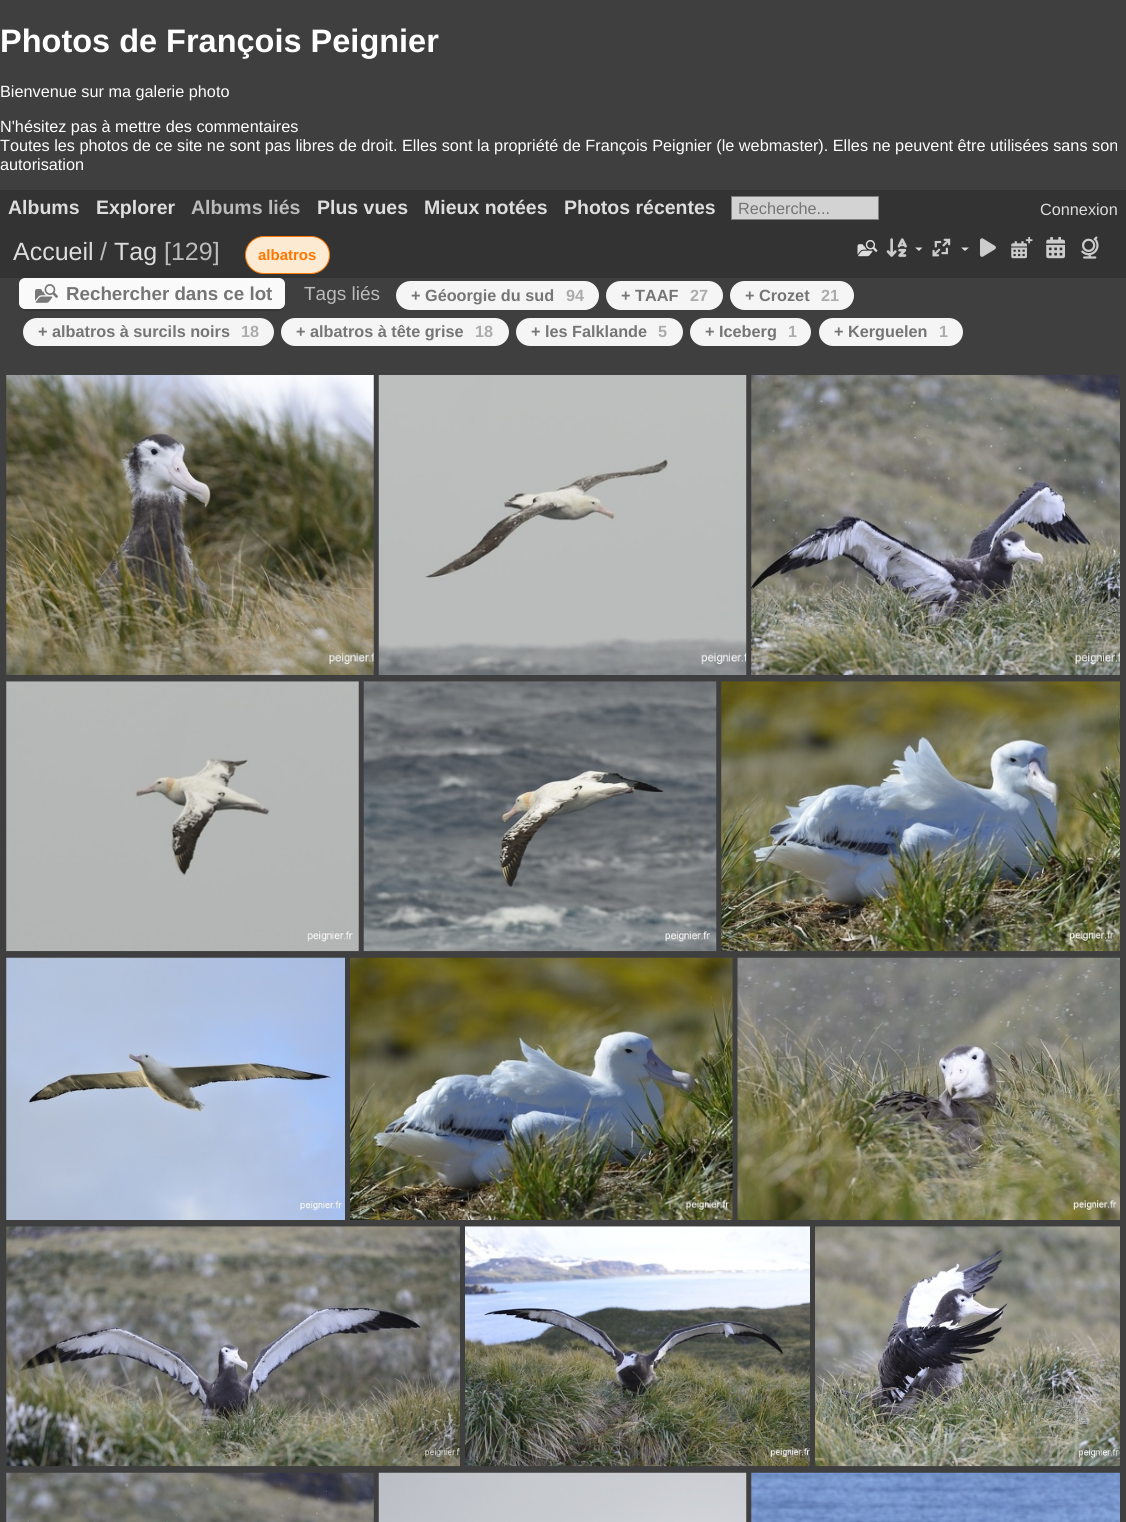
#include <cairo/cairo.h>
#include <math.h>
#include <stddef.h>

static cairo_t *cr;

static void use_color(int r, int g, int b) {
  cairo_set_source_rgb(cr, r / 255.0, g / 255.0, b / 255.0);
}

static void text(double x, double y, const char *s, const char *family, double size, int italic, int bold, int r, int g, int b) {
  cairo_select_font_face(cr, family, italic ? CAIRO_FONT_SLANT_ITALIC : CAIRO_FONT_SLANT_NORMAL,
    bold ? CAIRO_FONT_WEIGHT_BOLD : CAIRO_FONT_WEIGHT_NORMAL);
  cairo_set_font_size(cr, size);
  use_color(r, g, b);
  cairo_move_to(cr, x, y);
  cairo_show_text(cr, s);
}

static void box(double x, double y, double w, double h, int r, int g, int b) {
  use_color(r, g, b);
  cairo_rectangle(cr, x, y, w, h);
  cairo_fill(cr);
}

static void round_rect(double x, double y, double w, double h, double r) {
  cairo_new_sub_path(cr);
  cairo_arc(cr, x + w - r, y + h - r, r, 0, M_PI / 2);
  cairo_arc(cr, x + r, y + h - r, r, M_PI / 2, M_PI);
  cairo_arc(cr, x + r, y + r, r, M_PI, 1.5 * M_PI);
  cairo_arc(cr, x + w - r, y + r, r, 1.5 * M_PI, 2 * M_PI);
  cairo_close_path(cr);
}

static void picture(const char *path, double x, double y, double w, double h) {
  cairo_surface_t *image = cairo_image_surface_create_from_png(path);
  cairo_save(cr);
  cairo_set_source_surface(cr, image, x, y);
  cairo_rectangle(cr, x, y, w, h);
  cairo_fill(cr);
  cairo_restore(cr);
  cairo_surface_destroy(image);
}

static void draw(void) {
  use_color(63, 63, 63);
  cairo_paint(cr);
  box(0, 190, 1126, 88, 51, 51, 51);
  use_color(211, 211, 211);
  cairo_rectangle(cr, 731.5, 196.5, 147, 23);
  cairo_fill_preserve(cr);
  use_color(128, 128, 128);
  cairo_set_line_width(cr, 1);
  cairo_stroke(cr);
  use_color(252, 234, 210);
  round_rect(245.5, 236.5, 84, 37, 18.5);
  cairo_fill_preserve(cr);
  use_color(255, 119, 0);
  cairo_stroke(cr);
  picture("img_01.png", 886, 238, 21, 19);
  use_color(221, 221, 221);
  cairo_new_path(cr);
  cairo_move_to(cr, 915, 247.5);
  cairo_line_to(cr, 922.5, 247.5);
  cairo_line_to(cr, 919, 251);
  cairo_close_path(cr);
  cairo_move_to(cr, 961, 247.5);
  cairo_line_to(cr, 969, 247.5);
  cairo_line_to(cr, 965, 251);
  cairo_close_path(cr);
  cairo_fill(cr);
  picture("img_02.png", 1011, 236, 22, 23);
  picture("img_03.png", 1046, 236, 19, 23);
  picture("img_04.png", 1081, 236, 18, 23);
  picture("img_05.png", 857, 239, 21, 18);
  picture("img_06.png", 932, 238, 19, 19);
  picture("img_07.png", 980, 238, 16, 19);
  use_color(54, 54, 54);
  cairo_new_path(cr);
  cairo_move_to(cr, 19, 304);
  cairo_line_to(cr, 19, 305);
  cairo_curve_to(cr, 19, 308, 22, 311, 25, 311);
  cairo_line_to(cr, 279, 311);
  cairo_curve_to(cr, 282, 311, 285, 308, 285, 305);
  cairo_line_to(cr, 285, 302);
  cairo_curve_to(cr, 285, 306, 282, 309, 279, 309);
  cairo_line_to(cr, 25, 309);
  cairo_curve_to(cr, 22, 309, 20, 307, 19, 304);
  cairo_close_path(cr);
  cairo_fill(cr);
  use_color(250, 250, 250);
  round_rect(19, 278, 266, 31, 6);
  cairo_fill(cr);
  picture("img_08.png", 35, 284, 23, 19);
  use_color(245, 245, 245);
  round_rect(396, 281, 203, 29, 14.5);
  cairo_fill(cr);
  round_rect(606, 281, 117, 29, 14.5);
  cairo_fill(cr);
  round_rect(730, 281, 124, 29, 14.5);
  cairo_fill(cr);
  round_rect(23, 318, 251, 28, 14);
  cairo_fill(cr);
  round_rect(281, 318, 228, 28, 14);
  cairo_fill(cr);
  round_rect(516, 318, 167, 28, 14);
  cairo_fill(cr);
  round_rect(690, 318, 121, 28, 14);
  cairo_fill(cr);
  round_rect(819, 318, 144, 28, 14);
  cairo_fill(cr);
  picture("img_09.png", 6, 375, 368, 300);
  picture("img_10.png", 378, 375, 369, 300);
  picture("img_11.png", 751, 375, 369, 300);
  picture("img_12.png", 6, 681, 353, 271);
  picture("img_13.png", 363, 681, 354, 271);
  picture("img_14.png", 721, 681, 399, 271);
  picture("img_15.png", 6, 957, 339, 263);
  picture("img_16.png", 350, 957, 383, 263);
  picture("img_17.png", 737, 957, 383, 263);
  picture("img_18.png", 6, 1226, 454, 241);
  picture("img_19.png", 465, 1226, 345, 241);
  picture("img_20.png", 815, 1226, 305, 241);
  picture("img_21.png", 6, 1472, 368, 50);
  picture("img_22.png", 378, 1472, 369, 50);
  picture("img_23.png", 751, 1472, 369, 50);
  text(0, 52, "Photos de François Peignier", "Liberation Sans", 32.5, 0, 1, 255, 255, 255);
  text(0, 97, "Bienvenue sur ma galerie photo", "Liberation Sans", 16.25, 0, 0, 255, 255, 255);
  text(0, 132, "N'hésitez pas à mettre des commentaires", "Liberation Sans", 16.25, 0, 0, 255, 255, 255);
  text(0, 151, "Toutes les photos de ce site ne sont pas libres de droit. Elles sont la propriété de François Peignier (le webmaster). Elles ne peuvent être utilisées sans son", "Liberation Sans", 16.25, 0, 0, 255, 255, 255);
  text(0, 170, "autorisation", "Liberation Sans", 16.25, 0, 0, 255, 255, 255);
  text(8, 214, "Albums", "Liberation Sans", 19.5, 0, 1, 221, 221, 221);
  text(96, 214, "Explorer", "Liberation Sans", 19.5, 0, 1, 221, 221, 221);
  text(191, 214, "Albums liés", "Liberation Sans", 19.5, 0, 1, 187, 187, 187);
  text(317, 214, "Plus vues", "Liberation Sans", 19.5, 0, 1, 221, 221, 221);
  text(424, 214, "Mieux notées", "Liberation Sans", 19.5, 0, 1, 221, 221, 221);
  text(564, 214, "Photos récentes", "Liberation Sans", 19.5, 0, 1, 221, 221, 221);
  text(738, 214, "Recherche...", "Liberation Sans", 16.25, 0, 0, 117, 117, 117);
  text(1040, 215, "Connexion", "Liberation Sans", 16.25, 0, 0, 221, 221, 221);
  text(13, 260, "Accueil", "Liberation Sans", 25, 0, 0, 221, 221, 221);
  text(100, 260, "/", "Liberation Sans", 25, 0, 0, 187, 187, 187);
  text(114, 260, "Tag", "Liberation Sans", 25, 0, 0, 221, 221, 221);
  text(164, 260, "[129]", "Liberation Sans", 25, 0, 0, 187, 187, 187);
  text(258, 260, "albatros", "Liberation Sans", 15, 0, 1, 255, 119, 0);
  text(66, 300, "Rechercher dans ce lot", "Liberation Sans", 18.75, 0, 1, 117, 117, 117);
  text(304, 300, "Tags liés", "Liberation Sans", 19, 0, 0, 187, 187, 187);
  text(411, 301, "+ Géoorgie du sud", "Liberation Sans", 16.25, 0, 1, 117, 117, 117);
  text(566, 301, "94", "Liberation Sans", 16.25, 0, 1, 172, 172, 172);
  text(621, 301, "+ TAAF", "Liberation Sans", 16.25, 0, 1, 117, 117, 117);
  text(690, 301, "27", "Liberation Sans", 16.25, 0, 1, 172, 172, 172);
  text(745, 301, "+ Crozet", "Liberation Sans", 16.25, 0, 1, 117, 117, 117);
  text(821, 301, "21", "Liberation Sans", 16.25, 0, 1, 172, 172, 172);
  text(38, 337, "+ albatros à surcils noirs", "Liberation Sans", 16.25, 0, 1, 117, 117, 117);
  text(241, 337, "18", "Liberation Sans", 16.25, 0, 1, 172, 172, 172);
  text(296, 337, "+ albatros à tête grise", "Liberation Sans", 16.25, 0, 1, 117, 117, 117);
  text(475, 337, "18", "Liberation Sans", 16.25, 0, 1, 172, 172, 172);
  text(531, 337, "+ les Falklande", "Liberation Sans", 16.25, 0, 1, 117, 117, 117);
  text(658, 337, "5", "Liberation Sans", 16.25, 0, 1, 172, 172, 172);
  text(705, 337, "+ Iceberg", "Liberation Sans", 16.25, 0, 1, 117, 117, 117);
  text(788, 337, "1", "Liberation Sans", 16.25, 0, 1, 172, 172, 172);
  text(834, 337, "+ Kerguelen", "Liberation Sans", 16.25, 0, 1, 117, 117, 117);
  text(939, 337, "1", "Liberation Sans", 16.25, 0, 1, 172, 172, 172);
}

int main(void) {
  cairo_surface_t *surface = cairo_image_surface_create(CAIRO_FORMAT_RGB24, 1126, 1522);
  cr = cairo_create(surface);
  cairo_font_options_t *options = cairo_font_options_create();
  cairo_font_options_set_hint_metrics(options, CAIRO_HINT_METRICS_OFF);
  cairo_font_options_set_hint_style(options, CAIRO_HINT_STYLE_NONE);
  cairo_set_font_options(cr, options);
  cairo_set_miter_limit(cr, 4);
  draw();
  cairo_surface_write_to_png(surface, "out.png");
  cairo_font_options_destroy(options);
  cairo_destroy(cr);
  cairo_surface_destroy(surface);
  return 0;
}
